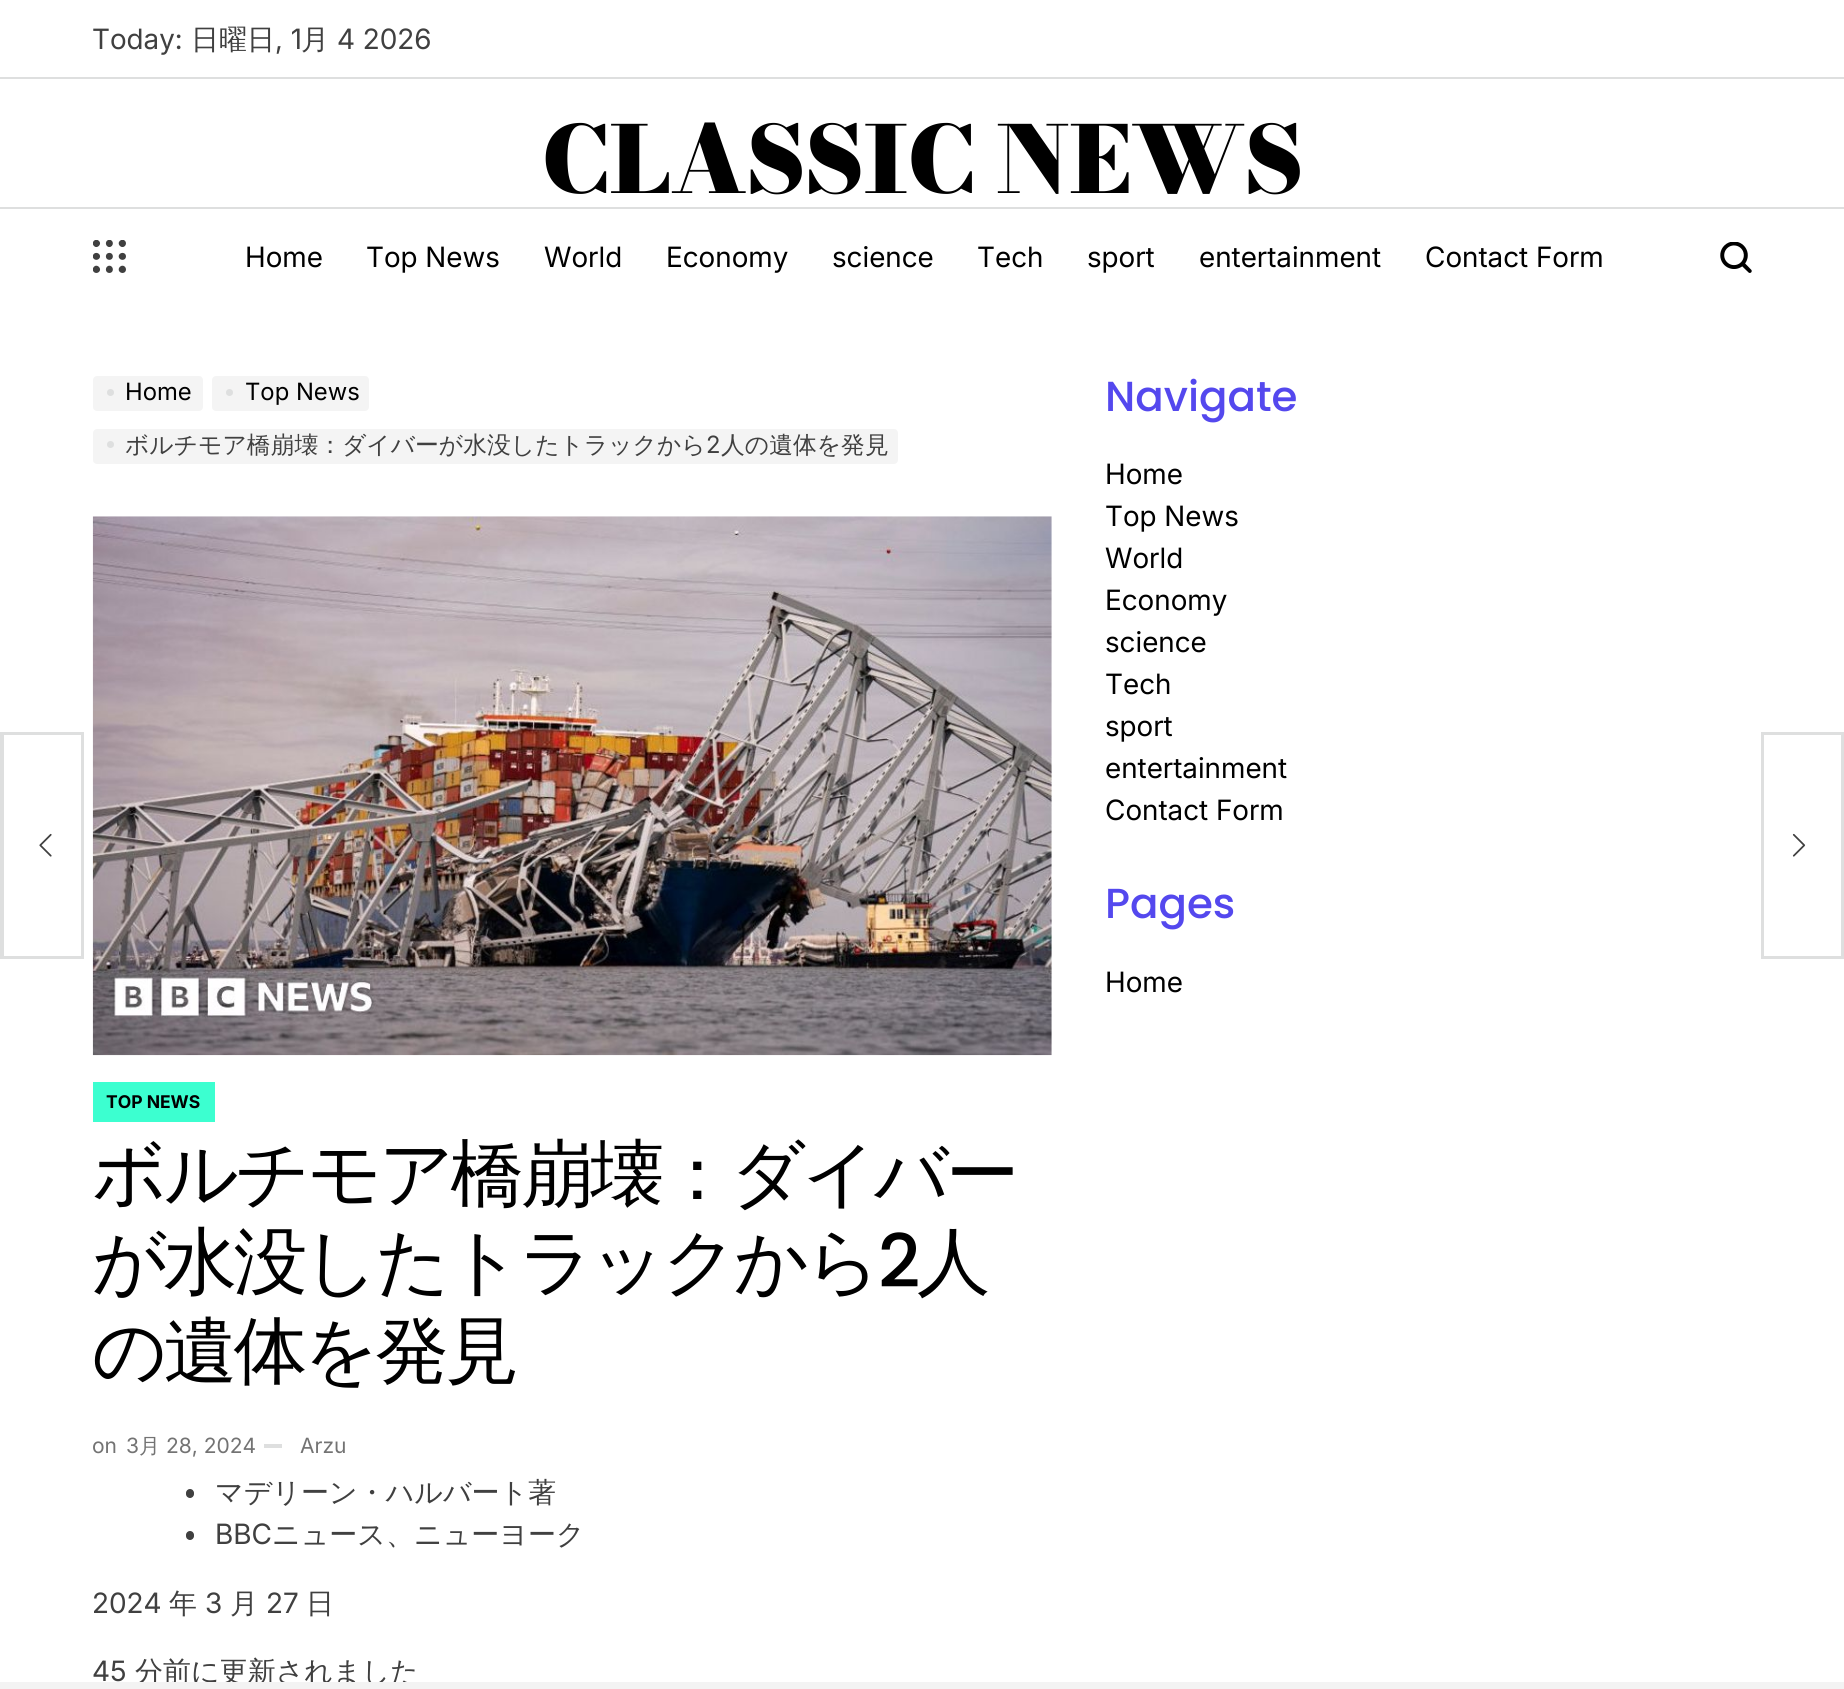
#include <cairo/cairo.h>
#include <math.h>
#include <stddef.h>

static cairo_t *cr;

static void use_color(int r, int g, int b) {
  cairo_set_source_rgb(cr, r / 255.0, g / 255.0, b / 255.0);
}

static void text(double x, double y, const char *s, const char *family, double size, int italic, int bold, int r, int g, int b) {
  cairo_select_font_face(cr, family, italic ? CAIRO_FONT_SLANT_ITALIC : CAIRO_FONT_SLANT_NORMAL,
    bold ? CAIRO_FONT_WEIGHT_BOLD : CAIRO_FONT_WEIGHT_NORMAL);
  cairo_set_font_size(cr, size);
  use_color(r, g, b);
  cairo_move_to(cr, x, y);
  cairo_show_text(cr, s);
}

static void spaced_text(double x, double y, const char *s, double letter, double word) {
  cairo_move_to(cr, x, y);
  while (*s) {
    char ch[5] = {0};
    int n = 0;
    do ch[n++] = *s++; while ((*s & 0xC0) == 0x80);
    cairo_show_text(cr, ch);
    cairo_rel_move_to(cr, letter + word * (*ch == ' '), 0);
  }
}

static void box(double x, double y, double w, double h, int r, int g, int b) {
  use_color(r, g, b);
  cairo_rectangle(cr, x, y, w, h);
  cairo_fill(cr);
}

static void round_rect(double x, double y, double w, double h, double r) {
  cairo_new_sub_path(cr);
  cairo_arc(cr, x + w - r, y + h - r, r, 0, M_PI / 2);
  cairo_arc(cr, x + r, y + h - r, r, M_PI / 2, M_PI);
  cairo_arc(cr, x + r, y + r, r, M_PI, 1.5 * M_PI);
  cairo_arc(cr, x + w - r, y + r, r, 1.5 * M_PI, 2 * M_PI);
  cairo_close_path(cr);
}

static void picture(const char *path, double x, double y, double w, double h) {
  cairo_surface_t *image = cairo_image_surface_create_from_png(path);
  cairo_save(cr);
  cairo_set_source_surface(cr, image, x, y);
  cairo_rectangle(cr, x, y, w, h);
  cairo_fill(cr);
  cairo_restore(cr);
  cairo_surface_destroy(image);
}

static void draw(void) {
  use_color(255, 255, 255);
  cairo_paint(cr);
  box(0, 77, 1844, 2, 222, 223, 223);
  box(0, 207, 1844, 2, 222, 223, 223);
  picture("img_01.png", 93, 240, 33, 33);
  picture("img_02.png", 1720, 242, 32, 31);
  use_color(244, 244, 244);
  round_rect(93, 376, 110, 35, 4);
  cairo_fill(cr);
  use_color(222, 223, 223);
  cairo_arc(cr, 110.5, 392.5, 3.5, 0, 2 * M_PI);
  cairo_fill(cr);
  use_color(244, 244, 244);
  round_rect(212, 376, 157, 35, 4);
  cairo_fill(cr);
  use_color(222, 223, 223);
  cairo_arc(cr, 229.5, 392.5, 3.5, 0, 2 * M_PI);
  cairo_fill(cr);
  use_color(244, 244, 244);
  round_rect(93, 429, 805, 35, 4);
  cairo_fill(cr);
  use_color(222, 223, 223);
  cairo_arc(cr, 110.5, 444.5, 3.5, 0, 2 * M_PI);
  cairo_fill(cr);
  picture("img_03.png", 92, 516, 960, 540);
  box(93, 1082, 122, 40, 60, 255, 208);
  box(264, 1444, 18, 4, 222, 223, 223);
  use_color(64, 64, 64);
  round_rect(186, 1489, 8, 9, 4);
  cairo_fill(cr);
  round_rect(186, 1531, 8, 9, 4);
  cairo_fill(cr);
  cairo_rectangle(cr, 2, 734, 80, 223);
  use_color(222, 223, 223);
  cairo_set_line_width(cr, 4);
  cairo_stroke(cr);
  box(4, 735, 77, 221, 255, 255, 255);
  picture("img_04.png", 39, 833, 13, 24);
  cairo_rectangle(cr, 1763, 734, 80, 223);
  use_color(222, 223, 223);
  cairo_stroke(cr);
  box(1764, 735, 77, 221, 255, 255, 255);
  picture("img_05.png", 1792, 833, 14, 24);
  text(92, 49, "Today:", "Inter", 28, 0, 0, 64, 64, 64);
  text(191, 49, "日曜日", "WenQuanYi Zen Hei Medium", 28, 0, 0, 64, 64, 64);
  text(275, 49, ", 1", "Inter", 28, 0, 0, 64, 64, 64);
  text(301, 49, "月", "WenQuanYi Zen Hei Medium", 28, 0, 0, 64, 64, 64);
  text(337, 49, "4 2026", "Inter", 28, 0, 0, 64, 64, 64);
  cairo_select_font_face(cr, "Bodoni Moda Black", CAIRO_FONT_SLANT_NORMAL, CAIRO_FONT_WEIGHT_NORMAL);
  cairo_set_font_size(cr, 92.25);
  use_color(0, 0, 0);
  spaced_text(542, 193, "CLASSIC NEWS", 0, -2);
  text(245, 267, "Home", "Inter", 28, 0, 0, 0, 0, 0);
  text(366, 267, "Top News", "Inter", 28, 0, 0, 0, 0, 0);
  text(544, 267, "World", "Inter", 28, 0, 0, 0, 0, 0);
  text(666, 267, "Economy", "Inter", 28, 0, 0, 0, 0, 0);
  text(832, 267, "science", "Inter", 28, 0, 0, 0, 0, 0);
  text(977, 267, "Tech", "Inter", 28, 0, 0, 0, 0, 0);
  text(1087, 267, "sport", "Inter", 28, 0, 0, 0, 0, 0);
  text(1199, 267, "entertainment", "Inter", 28, 0, 0, 0, 0, 0);
  text(1425, 267, "Contact Form", "Inter", 28, 0, 0, 0, 0, 0);
  text(125, 400, "Home", "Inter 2", 23.8, 0, 0, 0, 0, 0);
  text(245, 400, "Top News", "Inter 2", 23.8, 0, 0, 0, 0, 0);
  text(125, 453, "ボルチモア橋崩壊：ダイバーが水没したトラックから", "WenQuanYi Zen Hei Medium", 23.8, 0, 0, 64, 64, 64);
  text(706, 453, "2", "Inter 2", 23.8, 0, 0, 64, 64, 64);
  text(721, 453, "人の遺体を発見", "WenQuanYi Zen Hei Medium", 23.8, 0, 0, 64, 64, 64);
  text(106, 1108, "TOP NEWS", "Inter", 17.5, 0, 1, 0, 0, 0);
  cairo_select_font_face(cr, "WenQuanYi Zen Hei Medium", CAIRO_FONT_SLANT_NORMAL, CAIRO_FONT_WEIGHT_NORMAL);
  cairo_set_font_size(cr, 73.5);
  spaced_text(92, 1199, "ボルチモア橋崩壊：ダイバー", -3.5, 0);
  spaced_text(92, 1287, "が水没したトラックから", -3.5, 0);
  cairo_select_font_face(cr, "Poppins Medium", CAIRO_FONT_SLANT_NORMAL, CAIRO_FONT_WEIGHT_NORMAL);
  spaced_text(878, 1287, "2", -3.5, 0);
  cairo_select_font_face(cr, "WenQuanYi Zen Hei Medium", CAIRO_FONT_SLANT_NORMAL, CAIRO_FONT_WEIGHT_NORMAL);
  spaced_text(917, 1287, "人", -3.5, 0);
  spaced_text(92, 1376, "の遺体を発見", -3.5, 0);
  text(92, 1453, "on", "Inter 2", 21, 0, 0, 115, 115, 115);
  text(126, 1453, "3", "Inter 2", 21, 0, 0, 115, 115, 115);
  text(139, 1453, "月", "WenQuanYi Zen Hei Medium", 21, 0, 0, 115, 115, 115);
  text(166, 1453, "28, 2024", "Inter 2", 21, 0, 0, 115, 115, 115);
  text(300, 1453, "Arzu", "Inter 2", 21, 0, 0, 115, 115, 115);
  text(215, 1502, "マデリーン・ハルバート著", "WenQuanYi Zen Hei Medium", 28, 0, 0, 64, 64, 64);
  text(215, 1544, "BBC", "Inter", 28, 0, 0, 64, 64, 64);
  text(272, 1544, "ニュース、ニューヨーク", "WenQuanYi Zen Hei Medium", 28, 0, 0, 64, 64, 64);
  text(92, 1613, "2024", "Inter", 28, 0, 0, 64, 64, 64);
  text(169, 1613, "年", "WenQuanYi Zen Hei Medium", 28, 0, 0, 64, 64, 64);
  text(205, 1613, "3", "Inter", 28, 0, 0, 64, 64, 64);
  text(230, 1613, "月", "WenQuanYi Zen Hei Medium", 28, 0, 0, 64, 64, 64);
  text(266, 1613, "27", "Inter", 28, 0, 0, 64, 64, 64);
  text(306, 1613, "日", "WenQuanYi Zen Hei Medium", 28, 0, 0, 64, 64, 64);
  text(92, 1681, "45", "Inter", 28, 0, 0, 64, 64, 64);
  text(135, 1681, "分前に更新されました", "WenQuanYi Zen Hei Medium", 28, 0, 0, 64, 64, 64);
  text(1105, 411, "Navigate", "Poppins Medium", 42, 0, 0, 84, 72, 238);
  text(1105, 484, "Home", "Inter", 28, 0, 0, 0, 0, 0);
  text(1105, 526, "Top News", "Inter", 28, 0, 0, 0, 0, 0);
  text(1105, 568, "World", "Inter", 28, 0, 0, 0, 0, 0);
  text(1105, 610, "Economy", "Inter", 28, 0, 0, 0, 0, 0);
  text(1105, 652, "science", "Inter", 28, 0, 0, 0, 0, 0);
  text(1105, 694, "Tech", "Inter", 28, 0, 0, 0, 0, 0);
  text(1105, 736, "sport", "Inter", 28, 0, 0, 0, 0, 0);
  text(1105, 778, "entertainment", "Inter", 28, 0, 0, 0, 0, 0);
  text(1105, 820, "Contact Form", "Inter", 28, 0, 0, 0, 0, 0);
  text(1105, 918, "Pages", "Poppins Medium", 42, 0, 0, 84, 72, 238);
  text(1105, 992, "Home", "Inter", 28, 0, 0, 0, 0, 0);
  box(0, 1682, 1844, 7, 243, 243, 243);
}

int main(void) {
  cairo_surface_t *surface = cairo_image_surface_create(CAIRO_FORMAT_RGB24, 1844, 1689);
  cr = cairo_create(surface);
  cairo_font_options_t *options = cairo_font_options_create();
  cairo_font_options_set_hint_metrics(options, CAIRO_HINT_METRICS_OFF);
  cairo_font_options_set_hint_style(options, CAIRO_HINT_STYLE_NONE);
  cairo_set_font_options(cr, options);
  cairo_set_miter_limit(cr, 4);
  draw();
  cairo_surface_write_to_png(surface, "out.png");
  cairo_font_options_destroy(options);
  cairo_destroy(cr);
  cairo_surface_destroy(surface);
  return 0;
}
